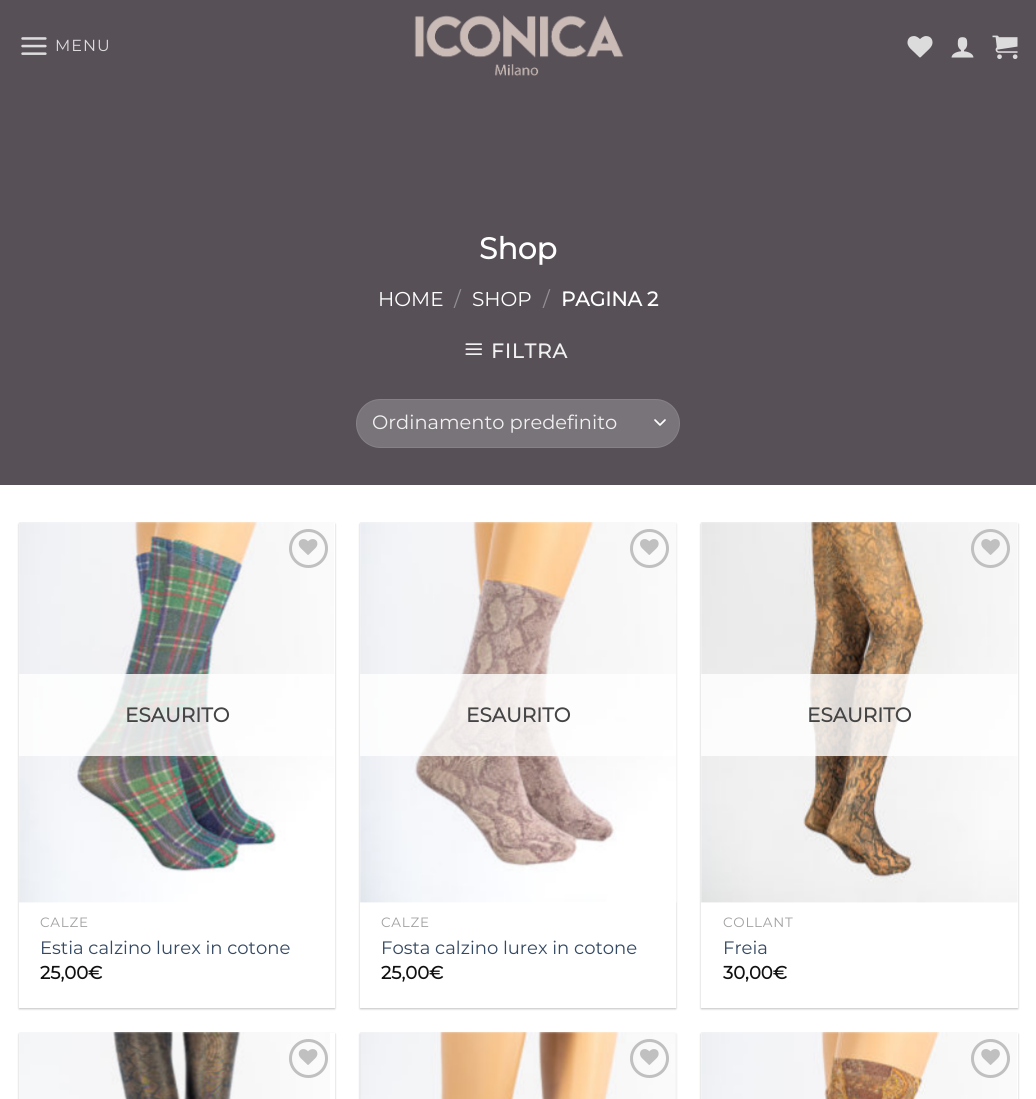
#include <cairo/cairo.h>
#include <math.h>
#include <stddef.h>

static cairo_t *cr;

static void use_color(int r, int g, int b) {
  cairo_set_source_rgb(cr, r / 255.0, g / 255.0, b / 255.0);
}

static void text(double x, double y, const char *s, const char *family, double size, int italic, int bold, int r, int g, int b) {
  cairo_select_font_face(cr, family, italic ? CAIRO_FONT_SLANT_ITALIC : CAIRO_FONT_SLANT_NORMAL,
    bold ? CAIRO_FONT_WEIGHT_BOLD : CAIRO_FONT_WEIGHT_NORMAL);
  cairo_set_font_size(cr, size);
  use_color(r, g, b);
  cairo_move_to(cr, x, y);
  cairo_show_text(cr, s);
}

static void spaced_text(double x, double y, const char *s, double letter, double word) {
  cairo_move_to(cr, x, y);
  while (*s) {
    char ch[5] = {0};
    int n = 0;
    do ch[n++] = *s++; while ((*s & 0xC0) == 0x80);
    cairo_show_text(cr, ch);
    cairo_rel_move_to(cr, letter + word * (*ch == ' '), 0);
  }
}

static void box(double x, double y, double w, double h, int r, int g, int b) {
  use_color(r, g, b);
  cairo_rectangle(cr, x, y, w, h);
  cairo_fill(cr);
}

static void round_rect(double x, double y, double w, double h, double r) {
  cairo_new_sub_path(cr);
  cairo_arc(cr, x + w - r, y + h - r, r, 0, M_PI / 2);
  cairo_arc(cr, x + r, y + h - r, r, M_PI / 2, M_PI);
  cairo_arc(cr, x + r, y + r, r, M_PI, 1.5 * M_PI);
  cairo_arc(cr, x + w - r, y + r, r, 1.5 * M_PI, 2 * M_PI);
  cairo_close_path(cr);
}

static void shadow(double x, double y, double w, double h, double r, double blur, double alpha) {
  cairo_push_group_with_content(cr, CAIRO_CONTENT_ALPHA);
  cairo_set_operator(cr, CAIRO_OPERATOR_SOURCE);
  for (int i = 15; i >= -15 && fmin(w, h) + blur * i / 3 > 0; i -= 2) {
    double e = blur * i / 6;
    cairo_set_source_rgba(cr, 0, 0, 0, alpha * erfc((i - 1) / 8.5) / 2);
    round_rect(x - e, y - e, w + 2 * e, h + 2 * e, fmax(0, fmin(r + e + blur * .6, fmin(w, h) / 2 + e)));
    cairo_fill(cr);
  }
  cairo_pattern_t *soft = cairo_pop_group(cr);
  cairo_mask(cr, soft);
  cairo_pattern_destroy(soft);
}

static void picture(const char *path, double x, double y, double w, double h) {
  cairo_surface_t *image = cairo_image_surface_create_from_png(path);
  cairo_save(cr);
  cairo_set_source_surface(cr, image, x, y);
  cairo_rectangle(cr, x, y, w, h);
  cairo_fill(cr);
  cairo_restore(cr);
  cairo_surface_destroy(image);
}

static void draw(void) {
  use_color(255, 255, 255);
  cairo_paint(cr);
  box(0, 0, 1036, 485, 87, 81, 87);
  picture("img_01.png", 21, 37, 26, 18);
  picture("img_02.png", 414, 15, 210, 61);
  picture("img_03.png", 907, 36, 26, 22);
  picture("img_04.png", 951, 37, 23, 21);
  picture("img_05.png", 992, 35, 26, 24);
  picture("img_06.png", 465, 343, 17, 12);
  use_color(121, 116, 121);
  round_rect(356, 399, 324, 49, 24.5);
  cairo_fill(cr);
  cairo_new_path(cr);
  cairo_move_to(cr, 655, 420);
  cairo_line_to(cr, 660, 425);
  cairo_line_to(cr, 665, 420);
  use_color(255, 255, 255);
  cairo_set_line_width(cr, 1.7);
  cairo_set_line_cap(cr, CAIRO_LINE_CAP_ROUND);
  cairo_set_line_join(cr, CAIRO_LINE_JOIN_ROUND);
  cairo_stroke(cr);
  round_rect(356.5, 399.5, 323, 48, 24);
  cairo_set_source_rgba(cr, 1, 1, 1, 0.09);
  cairo_set_line_width(cr, 1);
  cairo_set_line_cap(cr, CAIRO_LINE_CAP_BUTT);
  cairo_set_line_join(cr, CAIRO_LINE_JOIN_MITER);
  cairo_stroke(cr);
  use_color(0, 0, 0);
  shadow(19, 524, 316, 485, 0, 1, 0.24);
  box(19, 523, 316, 485, 255, 255, 255);
  picture("img_07.png", 19, 522, 315, 381);
  cairo_arc(cr, 308.5, 548.5, 18, 0, 2 * M_PI);
  use_color(192, 192, 192);
  cairo_set_line_width(cr, 3);
  cairo_stroke(cr);
  picture("img_08.png", 298, 539, 20, 16);
  cairo_set_source_rgba(cr, 1, 1, 1, 0.81);
  cairo_rectangle(cr, 19, 674, 315, 82);
  cairo_fill(cr);
  use_color(0, 0, 0);
  shadow(360, 524, 316, 485, 0, 1, 0.24);
  box(360, 523, 316, 485, 255, 255, 255);
  picture("img_09.png", 360, 522, 317, 381);
  cairo_arc(cr, 649.5, 548.5, 18, 0, 2 * M_PI);
  use_color(192, 192, 192);
  cairo_stroke(cr);
  picture("img_10.png", 640, 539, 19, 16);
  cairo_set_source_rgba(cr, 1, 1, 1, 0.81);
  cairo_rectangle(cr, 360, 674, 316, 82);
  cairo_fill(cr);
  use_color(0, 0, 0);
  shadow(701, 524, 317, 485, 0, 1, 0.24);
  box(701, 523, 317, 485, 255, 255, 255);
  picture("img_11.png", 701, 522, 317, 381);
  cairo_arc(cr, 990.5, 548.5, 18, 0, 2 * M_PI);
  use_color(192, 192, 192);
  cairo_stroke(cr);
  picture("img_12.png", 981, 539, 19, 16);
  cairo_set_source_rgba(cr, 1, 1, 1, 0.81);
  cairo_rectangle(cr, 701, 674, 317, 82);
  cairo_fill(cr);
  cairo_save(cr);
  cairo_set_fill_rule(cr, CAIRO_FILL_RULE_EVEN_ODD);
  cairo_new_path(cr);
  cairo_move_to(cr, 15, 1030);
  cairo_line_to(cr, 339, 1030);
  cairo_line_to(cr, 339, 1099);
  cairo_line_to(cr, 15, 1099);
  cairo_close_path(cr);
  cairo_move_to(cr, 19, 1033);
  cairo_line_to(cr, 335, 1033);
  cairo_line_to(cr, 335, 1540);
  cairo_line_to(cr, 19, 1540);
  cairo_close_path(cr);
  cairo_clip(cr);
  use_color(0, 0, 0);
  shadow(19, 1034, 316, 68, 0, 1, 0.24);
  cairo_restore(cr);
  picture("img_13.png", 19, 1032, 311, 67);
  cairo_arc(cr, 308.5, 1058.5, 18, 0, 2 * M_PI);
  use_color(192, 192, 192);
  cairo_stroke(cr);
  picture("img_14.png", 298, 1049, 20, 16);
  use_color(0, 0, 0);
  shadow(360, 1034, 316, 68, 0, 1, 0.24);
  picture("img_15.png", 360, 1032, 317, 67);
  cairo_arc(cr, 649.5, 1058.5, 18, 0, 2 * M_PI);
  use_color(192, 192, 192);
  cairo_stroke(cr);
  picture("img_16.png", 640, 1049, 19, 16);
  use_color(0, 0, 0);
  shadow(701, 1034, 317, 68, 0, 1, 0.24);
  box(701, 1033, 317, 66, 255, 255, 255);
  picture("img_17.png", 701, 1032, 316, 67);
  cairo_arc(cr, 990.5, 1058.5, 18, 0, 2 * M_PI);
  use_color(192, 192, 192);
  cairo_stroke(cr);
  picture("img_18.png", 981, 1049, 19, 16);
  cairo_select_font_face(cr, "Montserrat Thin", CAIRO_FONT_SLANT_NORMAL, CAIRO_FONT_WEIGHT_NORMAL);
  cairo_set_font_size(cr, 16);
  use_color(221, 220, 221);
  spaced_text(55, 51, "MENU", 1, 0);
  text(479, 259, "Shop", "Montserrat", 30, 0, 1, 255, 255, 255);
  text(378, 306, "HOME", "Montserrat Thin", 20, 0, 0, 255, 255, 255);
  text(454, 306, "/", "Montserrat Thin", 20, 0, 0, 146, 142, 146);
  text(472, 306, "SHOP", "Montserrat Thin", 20, 0, 0, 255, 255, 255);
  text(543, 306, "/", "Montserrat Thin", 20, 0, 0, 146, 142, 146);
  text(561, 306, "PAGINA 2", "Montserrat", 20, 0, 1, 255, 255, 255);
  use_color(241, 241, 241);
  spaced_text(491, 358, "FILTRA", 1, 0);
  text(372, 429, "Ordinamento predefinito", "Montserrat Thin", 19.4, 0, 0, 241, 241, 241);
  text(125, 722, "ESAURITO", "Montserrat", 20, 0, 1, 69, 69, 69);
  cairo_select_font_face(cr, "Montserrat Thin", CAIRO_FONT_SLANT_NORMAL, CAIRO_FONT_WEIGHT_NORMAL);
  cairo_set_font_size(cr, 13.5);
  use_color(160, 160, 160);
  spaced_text(40, 927, "CALZE", 0.75, 0);
  text(40, 954, "Estia calzino lurex in cotone", "Montserrat Thin", 18, 0, 0, 51, 72, 98);
  text(40, 979, "25,00€", "Montserrat", 18, 0, 1, 17, 17, 17);
  text(466, 722, "ESAURITO", "Montserrat", 20, 0, 1, 69, 69, 69);
  cairo_select_font_face(cr, "Montserrat Thin", CAIRO_FONT_SLANT_NORMAL, CAIRO_FONT_WEIGHT_NORMAL);
  cairo_set_font_size(cr, 13.5);
  use_color(160, 160, 160);
  spaced_text(381, 927, "CALZE", 0.75, 0);
  text(381, 954, "Fosta calzino lurex in cotone", "Montserrat Thin", 18, 0, 0, 51, 72, 98);
  text(381, 979, "25,00€", "Montserrat", 18, 0, 1, 17, 17, 17);
  text(807, 722, "ESAURITO", "Montserrat", 20, 0, 1, 69, 69, 69);
  cairo_select_font_face(cr, "Montserrat Thin", CAIRO_FONT_SLANT_NORMAL, CAIRO_FONT_WEIGHT_NORMAL);
  cairo_set_font_size(cr, 13.5);
  use_color(160, 160, 160);
  spaced_text(723, 927, "COLLANT", 0.75, 0);
  text(723, 954, "Freia", "Montserrat Thin", 18, 0, 0, 51, 72, 98);
  text(723, 979, "30,00€", "Montserrat", 18, 0, 1, 17, 17, 17);
}

int main(void) {
  cairo_surface_t *surface = cairo_image_surface_create(CAIRO_FORMAT_RGB24, 1036, 1099);
  cr = cairo_create(surface);
  cairo_font_options_t *options = cairo_font_options_create();
  cairo_font_options_set_hint_metrics(options, CAIRO_HINT_METRICS_OFF);
  cairo_font_options_set_hint_style(options, CAIRO_HINT_STYLE_NONE);
  cairo_set_font_options(cr, options);
  cairo_set_miter_limit(cr, 4);
  draw();
  cairo_surface_write_to_png(surface, "out.png");
  cairo_font_options_destroy(options);
  cairo_destroy(cr);
  cairo_surface_destroy(surface);
  return 0;
}
